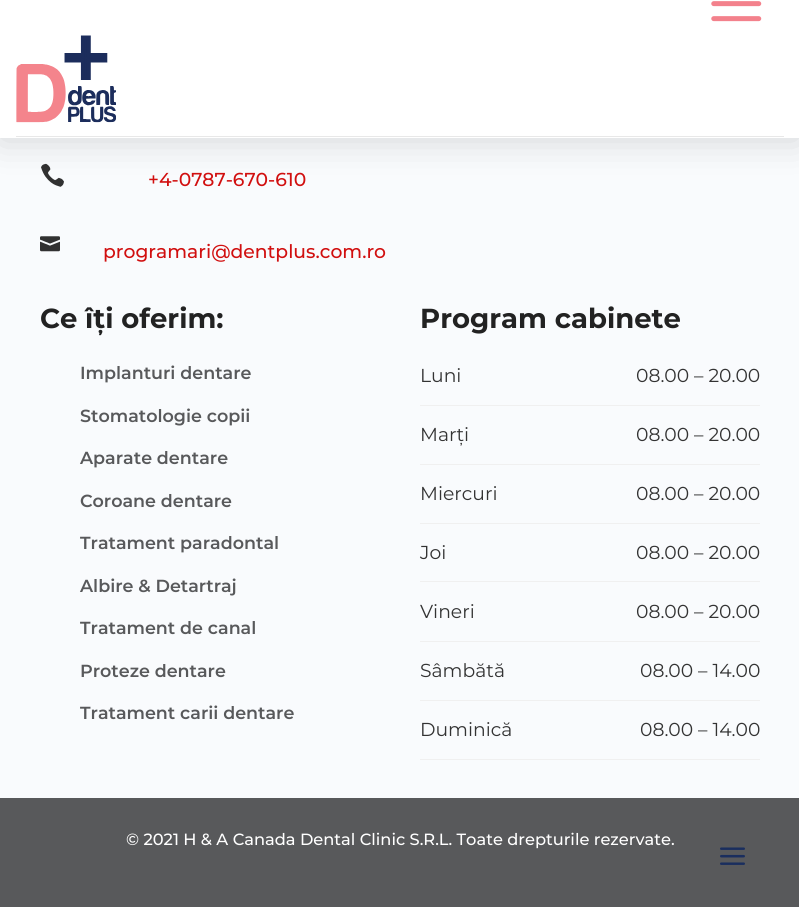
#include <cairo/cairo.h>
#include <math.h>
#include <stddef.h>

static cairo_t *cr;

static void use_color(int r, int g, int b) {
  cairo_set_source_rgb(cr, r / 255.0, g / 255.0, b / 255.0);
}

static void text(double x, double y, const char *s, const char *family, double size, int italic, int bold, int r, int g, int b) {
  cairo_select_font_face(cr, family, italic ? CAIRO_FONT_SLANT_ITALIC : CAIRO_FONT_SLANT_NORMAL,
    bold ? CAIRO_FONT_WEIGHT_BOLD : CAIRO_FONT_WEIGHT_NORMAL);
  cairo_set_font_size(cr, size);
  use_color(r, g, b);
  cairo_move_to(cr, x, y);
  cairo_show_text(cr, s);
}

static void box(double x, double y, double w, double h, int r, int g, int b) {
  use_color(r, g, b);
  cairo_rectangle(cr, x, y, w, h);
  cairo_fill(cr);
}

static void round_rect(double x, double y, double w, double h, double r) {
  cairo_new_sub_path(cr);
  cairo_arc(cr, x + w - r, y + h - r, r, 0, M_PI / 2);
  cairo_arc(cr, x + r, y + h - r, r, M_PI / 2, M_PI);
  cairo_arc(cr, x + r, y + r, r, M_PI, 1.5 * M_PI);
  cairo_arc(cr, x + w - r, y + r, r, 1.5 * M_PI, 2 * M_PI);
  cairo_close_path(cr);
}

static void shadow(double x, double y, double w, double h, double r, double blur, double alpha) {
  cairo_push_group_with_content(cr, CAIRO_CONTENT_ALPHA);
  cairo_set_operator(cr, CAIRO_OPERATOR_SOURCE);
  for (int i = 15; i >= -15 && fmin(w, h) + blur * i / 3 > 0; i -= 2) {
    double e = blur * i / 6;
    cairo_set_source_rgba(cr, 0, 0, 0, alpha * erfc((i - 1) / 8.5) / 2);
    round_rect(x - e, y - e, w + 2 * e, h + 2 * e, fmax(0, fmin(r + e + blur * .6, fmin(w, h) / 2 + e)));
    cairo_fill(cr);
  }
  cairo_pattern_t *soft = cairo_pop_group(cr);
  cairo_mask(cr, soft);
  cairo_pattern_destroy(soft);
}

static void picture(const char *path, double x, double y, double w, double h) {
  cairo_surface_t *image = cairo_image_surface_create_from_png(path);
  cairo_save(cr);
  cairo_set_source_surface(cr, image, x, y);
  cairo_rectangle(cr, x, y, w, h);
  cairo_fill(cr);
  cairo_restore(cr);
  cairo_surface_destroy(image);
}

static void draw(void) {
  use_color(249, 251, 253);
  cairo_paint(cr);
  picture("img_03.png", 41, 163, 23, 24);
  use_color(0, 0, 0);
  shadow(0, 3, 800, 137, 0, 19, 0.15);
  box(0, 0, 799, 138, 255, 255, 255);
  box(16, 136, 768, 1, 232, 232, 232);
  picture("img_01.png", 711, 1, 51, 21);
  picture("img_02.png", 16, 35, 100, 88);
  picture("img_04.png", 40, 236, 20, 16);
  box(420, 405, 340, 1, 240, 240, 240);
  box(420, 464, 340, 1, 240, 240, 240);
  box(420, 523, 340, 1, 240, 240, 240);
  box(420, 581, 340, 1, 240, 240, 240);
  box(420, 641, 340, 1, 240, 240, 240);
  box(420, 700, 340, 1, 240, 240, 240);
  box(420, 759, 340, 1, 240, 240, 240);
  box(0, 798, 799, 109, 88, 89, 91);
  picture("img_05.png", 720, 847, 25, 18);
  text(148, 186, "+4-0787-670-610", "Montserrat Medium", 18.75, 0, 0, 209, 15, 15);
  text(103, 258, "programari@dentplus.com.ro", "Montserrat Medium", 18.75, 0, 0, 209, 15, 15);
  text(40, 328, "Ce îți oferim:", "Montserrat", 27.5, 0, 1, 34, 34, 34);
  text(80, 379, "Implanturi dentare", "Montserrat SemiBold", 17.5, 0, 0, 88, 89, 91);
  text(80, 422, "Stomatologie copii", "Montserrat SemiBold", 17.5, 0, 0, 88, 89, 91);
  text(80, 464, "Aparate dentare", "Montserrat SemiBold", 17.5, 0, 0, 88, 89, 91);
  text(80, 507, "Coroane dentare", "Montserrat SemiBold", 17.5, 0, 0, 88, 89, 91);
  text(80, 549, "Tratament paradontal", "Montserrat SemiBold", 17.5, 0, 0, 88, 89, 91);
  text(80, 592, "Albire & Detartraj", "Montserrat SemiBold", 17.5, 0, 0, 88, 89, 91);
  text(80, 634, "Tratament de canal", "Montserrat SemiBold", 17.5, 0, 0, 88, 89, 91);
  text(80, 677, "Proteze dentare", "Montserrat SemiBold", 17.5, 0, 0, 88, 89, 91);
  text(80, 719, "Tratament carii dentare", "Montserrat SemiBold", 17.5, 0, 0, 88, 89, 91);
  text(420, 328, "Program cabinete", "Montserrat", 27.5, 0, 1, 34, 34, 34);
  text(420, 382, "Luni", "Montserrat", 18.75, 0, 0, 51, 51, 51);
  text(636, 382, "08.00 – 20.00", "Montserrat", 18.75, 0, 0, 51, 51, 51);
  text(420, 441, "Marți", "Montserrat", 18.75, 0, 0, 51, 51, 51);
  text(636, 441, "08.00 – 20.00", "Montserrat", 18.75, 0, 0, 51, 51, 51);
  text(420, 500, "Miercuri", "Montserrat", 18.75, 0, 0, 51, 51, 51);
  text(636, 500, "08.00 – 20.00", "Montserrat", 18.75, 0, 0, 51, 51, 51);
  text(420, 559, "Joi", "Montserrat", 18.75, 0, 0, 51, 51, 51);
  text(636, 559, "08.00 – 20.00", "Montserrat", 18.75, 0, 0, 51, 51, 51);
  text(420, 618, "Vineri", "Montserrat", 18.75, 0, 0, 51, 51, 51);
  text(636, 618, "08.00 – 20.00", "Montserrat", 18.75, 0, 0, 51, 51, 51);
  text(420, 677, "Sâmbătă", "Montserrat", 18.75, 0, 0, 51, 51, 51);
  text(640, 677, "08.00 – 14.00", "Montserrat", 18.75, 0, 0, 51, 51, 51);
  text(420, 736, "Duminică", "Montserrat", 18.75, 0, 0, 51, 51, 51);
  text(640, 736, "08.00 – 14.00", "Montserrat", 18.75, 0, 0, 51, 51, 51);
  text(126, 845, "© 2021 H & A Canada Dental Clinic S.R.L. Toate drepturile rezervate.", "Montserrat Medium", 16.25, 0, 0, 255, 255, 255);
}

int main(void) {
  cairo_surface_t *surface = cairo_image_surface_create(CAIRO_FORMAT_RGB24, 799, 907);
  cr = cairo_create(surface);
  cairo_font_options_t *options = cairo_font_options_create();
  cairo_font_options_set_hint_metrics(options, CAIRO_HINT_METRICS_OFF);
  cairo_font_options_set_hint_style(options, CAIRO_HINT_STYLE_NONE);
  cairo_set_font_options(cr, options);
  cairo_set_miter_limit(cr, 4);
  draw();
  cairo_surface_write_to_png(surface, "out.png");
  cairo_font_options_destroy(options);
  cairo_destroy(cr);
  cairo_surface_destroy(surface);
  return 0;
}
